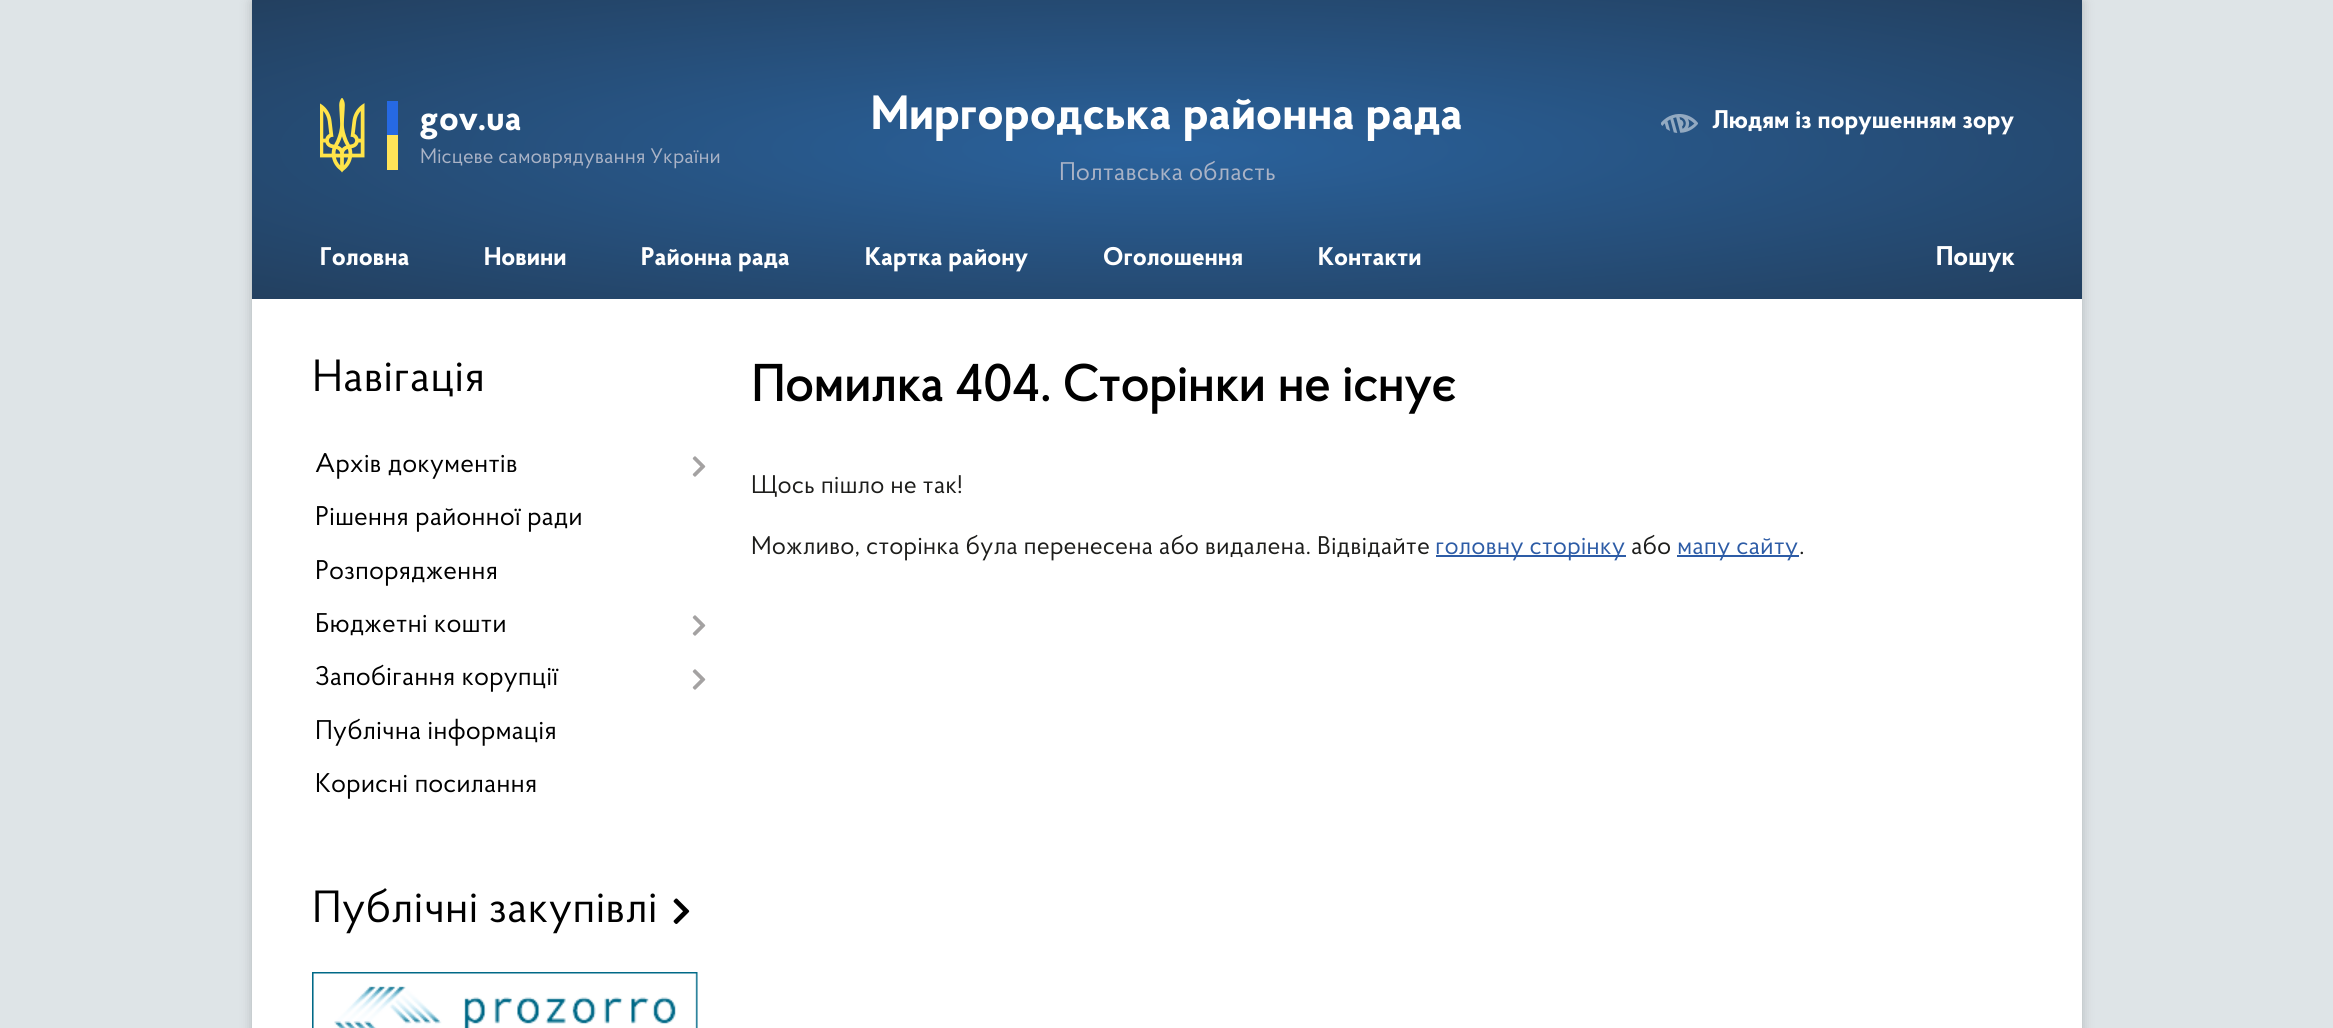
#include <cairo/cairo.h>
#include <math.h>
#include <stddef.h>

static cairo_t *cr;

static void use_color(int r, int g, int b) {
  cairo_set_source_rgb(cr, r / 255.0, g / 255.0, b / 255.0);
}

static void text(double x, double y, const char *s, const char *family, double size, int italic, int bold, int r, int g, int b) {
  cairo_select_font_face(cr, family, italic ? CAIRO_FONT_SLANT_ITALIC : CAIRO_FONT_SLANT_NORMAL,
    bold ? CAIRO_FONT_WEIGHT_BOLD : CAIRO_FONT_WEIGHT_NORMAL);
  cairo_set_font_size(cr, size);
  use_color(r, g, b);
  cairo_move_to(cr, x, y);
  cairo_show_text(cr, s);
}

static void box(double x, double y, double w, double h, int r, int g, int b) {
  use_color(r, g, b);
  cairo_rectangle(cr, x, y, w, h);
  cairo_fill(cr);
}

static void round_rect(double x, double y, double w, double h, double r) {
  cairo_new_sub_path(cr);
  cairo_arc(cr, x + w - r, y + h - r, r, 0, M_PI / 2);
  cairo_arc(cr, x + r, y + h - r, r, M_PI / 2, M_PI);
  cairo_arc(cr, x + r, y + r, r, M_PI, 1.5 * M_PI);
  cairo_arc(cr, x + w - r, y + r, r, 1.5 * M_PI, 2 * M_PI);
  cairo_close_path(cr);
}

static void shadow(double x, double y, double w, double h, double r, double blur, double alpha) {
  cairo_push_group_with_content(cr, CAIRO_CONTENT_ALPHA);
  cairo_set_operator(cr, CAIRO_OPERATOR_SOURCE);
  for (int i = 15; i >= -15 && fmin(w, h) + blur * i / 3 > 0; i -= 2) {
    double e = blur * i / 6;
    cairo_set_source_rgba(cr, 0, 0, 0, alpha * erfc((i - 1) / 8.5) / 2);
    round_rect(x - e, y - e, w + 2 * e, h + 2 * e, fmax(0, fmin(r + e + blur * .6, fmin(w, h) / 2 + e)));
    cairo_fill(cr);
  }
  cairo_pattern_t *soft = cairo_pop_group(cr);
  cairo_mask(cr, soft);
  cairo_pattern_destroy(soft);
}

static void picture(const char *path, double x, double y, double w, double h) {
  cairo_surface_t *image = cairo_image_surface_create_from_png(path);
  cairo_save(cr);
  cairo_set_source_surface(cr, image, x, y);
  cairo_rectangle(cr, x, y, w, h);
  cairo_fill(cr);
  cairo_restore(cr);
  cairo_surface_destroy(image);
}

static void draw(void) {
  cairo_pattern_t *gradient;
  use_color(222, 228, 231);
  cairo_paint(cr);
  use_color(0, 0, 0);
  shadow(252, 2, 1830, 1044, 0, 6, 0.2);
  box(252, 299, 1830, 729, 255, 255, 255);
  gradient = cairo_pattern_create_radial(0, 0, 0, 0, 0, 1);
  cairo_pattern_set_matrix(gradient, &(cairo_matrix_t){1.0 / 1294, 0, 0, 1.0 / 211, -1.0 * 1167 / 1294, -1.0 * 149 / 211});
  cairo_pattern_add_color_stop_rgba(gradient, 0, 0.165, 0.384, 0.612, 1);
  cairo_pattern_add_color_stop_rgba(gradient, 1, 0.137, 0.251, 0.376, 1);
  cairo_set_source(cr, gradient);
  cairo_pattern_destroy(gradient);
  cairo_rectangle(cr, 252, 0, 1830, 299);
  cairo_fill(cr);
  picture("img_01.png", 320, 98, 45, 75);
  box(387, 101, 11, 34, 38, 105, 227);
  box(387, 135, 11, 35, 255, 227, 88);
  picture("img_02.png", 1661, 114, 37, 19);
  picture("img_03.png", 692, 456, 14, 21);
  picture("img_03.png", 692, 615, 14, 21);
  picture("img_03.png", 692, 669, 14, 21);
  picture("img_04.png", 673, 898, 17, 26);
  picture("img_05.png", 312, 972, 386, 56);
  box(1436, 555, 190, 2, 45, 92, 166);
  box(1677, 555, 122, 2, 45, 92, 166);
  text(420, 130, "gov.ua", "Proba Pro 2", 36, 0, 1, 255, 255, 255);
  text(420, 163, "Місцеве самоврядування України", "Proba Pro", 21, 0, 0, 170, 179, 198);
  text(871, 129, "Миргородська районна рада", "Proba Pro 2", 48, 0, 1, 255, 255, 255);
  text(1059, 180, "Полтавська область", "Proba Pro", 25.5, 0, 0, 170, 179, 198);
  text(1712, 128, "Людям із порушенням зору", "Proba Pro 2", 25.5, 0, 1, 255, 255, 255);
  text(320, 265, "Головна", "Proba Pro 2", 25.5, 0, 1, 255, 255, 255);
  text(484, 265, "Новини", "Proba Pro 2", 25.5, 0, 1, 255, 255, 255);
  text(641, 265, "Районна рада", "Proba Pro 2", 25.5, 0, 1, 255, 255, 255);
  text(865, 265, "Картка району", "Proba Pro 2", 25.5, 0, 1, 255, 255, 255);
  text(1103, 265, "Оголошення", "Proba Pro 2", 25.5, 0, 1, 255, 255, 255);
  text(1318, 265, "Контакти", "Proba Pro 2", 25.5, 0, 1, 255, 255, 255);
  text(1936, 265, "Пошук", "Proba Pro 2", 27, 0, 1, 255, 255, 255);
  text(312, 391, "Навігація", "Proba Pro", 45, 0, 0, 0, 0, 0);
  text(315, 472, "Архів документів", "Proba Pro", 27, 0, 0, 0, 0, 0);
  text(315, 525, "Рішення районної ради", "Proba Pro", 27, 0, 0, 0, 0, 0);
  text(315, 579, "Розпорядження", "Proba Pro", 27, 0, 0, 0, 0, 0);
  text(315, 632, "Бюджетні кошти", "Proba Pro", 27, 0, 0, 0, 0, 0);
  text(315, 685, "Запобігання корупції", "Proba Pro", 27, 0, 0, 0, 0, 0);
  text(315, 739, "Публічна інформація", "Proba Pro", 27, 0, 0, 0, 0, 0);
  text(315, 792, "Корисні посилання", "Proba Pro", 27, 0, 0, 0, 0, 0);
  text(312, 922, "Публічні закупівлі", "Proba Pro", 45, 0, 0, 0, 0, 0);
  text(751, 401, "Помилка 404. Сторінки не існує", "Proba Pro", 51, 0, 1, 0, 0, 0);
  text(751, 493, "Щось пішло не так!", "Proba Pro", 25.5, 0, 0, 29, 29, 27);
  text(751, 554, "Можливо, сторінка була перенесена або видалена. Відвідайте", "Proba Pro", 25.5, 0, 0, 29, 29, 27);
  text(1435, 554, "головну сторінку", "Proba Pro", 25.5, 0, 0, 45, 92, 166);
  text(1631, 554, "або", "Proba Pro", 25.5, 0, 0, 29, 29, 27);
  text(1677, 554, "мапу сайту", "Proba Pro", 25.5, 0, 0, 45, 92, 166);
  text(1799, 554, ".", "Proba Pro", 25.5, 0, 0, 29, 29, 27);
}

int main(void) {
  cairo_surface_t *surface = cairo_image_surface_create(CAIRO_FORMAT_RGB24, 2333, 1028);
  cr = cairo_create(surface);
  cairo_font_options_t *options = cairo_font_options_create();
  cairo_font_options_set_hint_metrics(options, CAIRO_HINT_METRICS_OFF);
  cairo_font_options_set_hint_style(options, CAIRO_HINT_STYLE_NONE);
  cairo_set_font_options(cr, options);
  cairo_set_miter_limit(cr, 4);
  draw();
  cairo_surface_write_to_png(surface, "out.png");
  cairo_font_options_destroy(options);
  cairo_destroy(cr);
  cairo_surface_destroy(surface);
  return 0;
}
